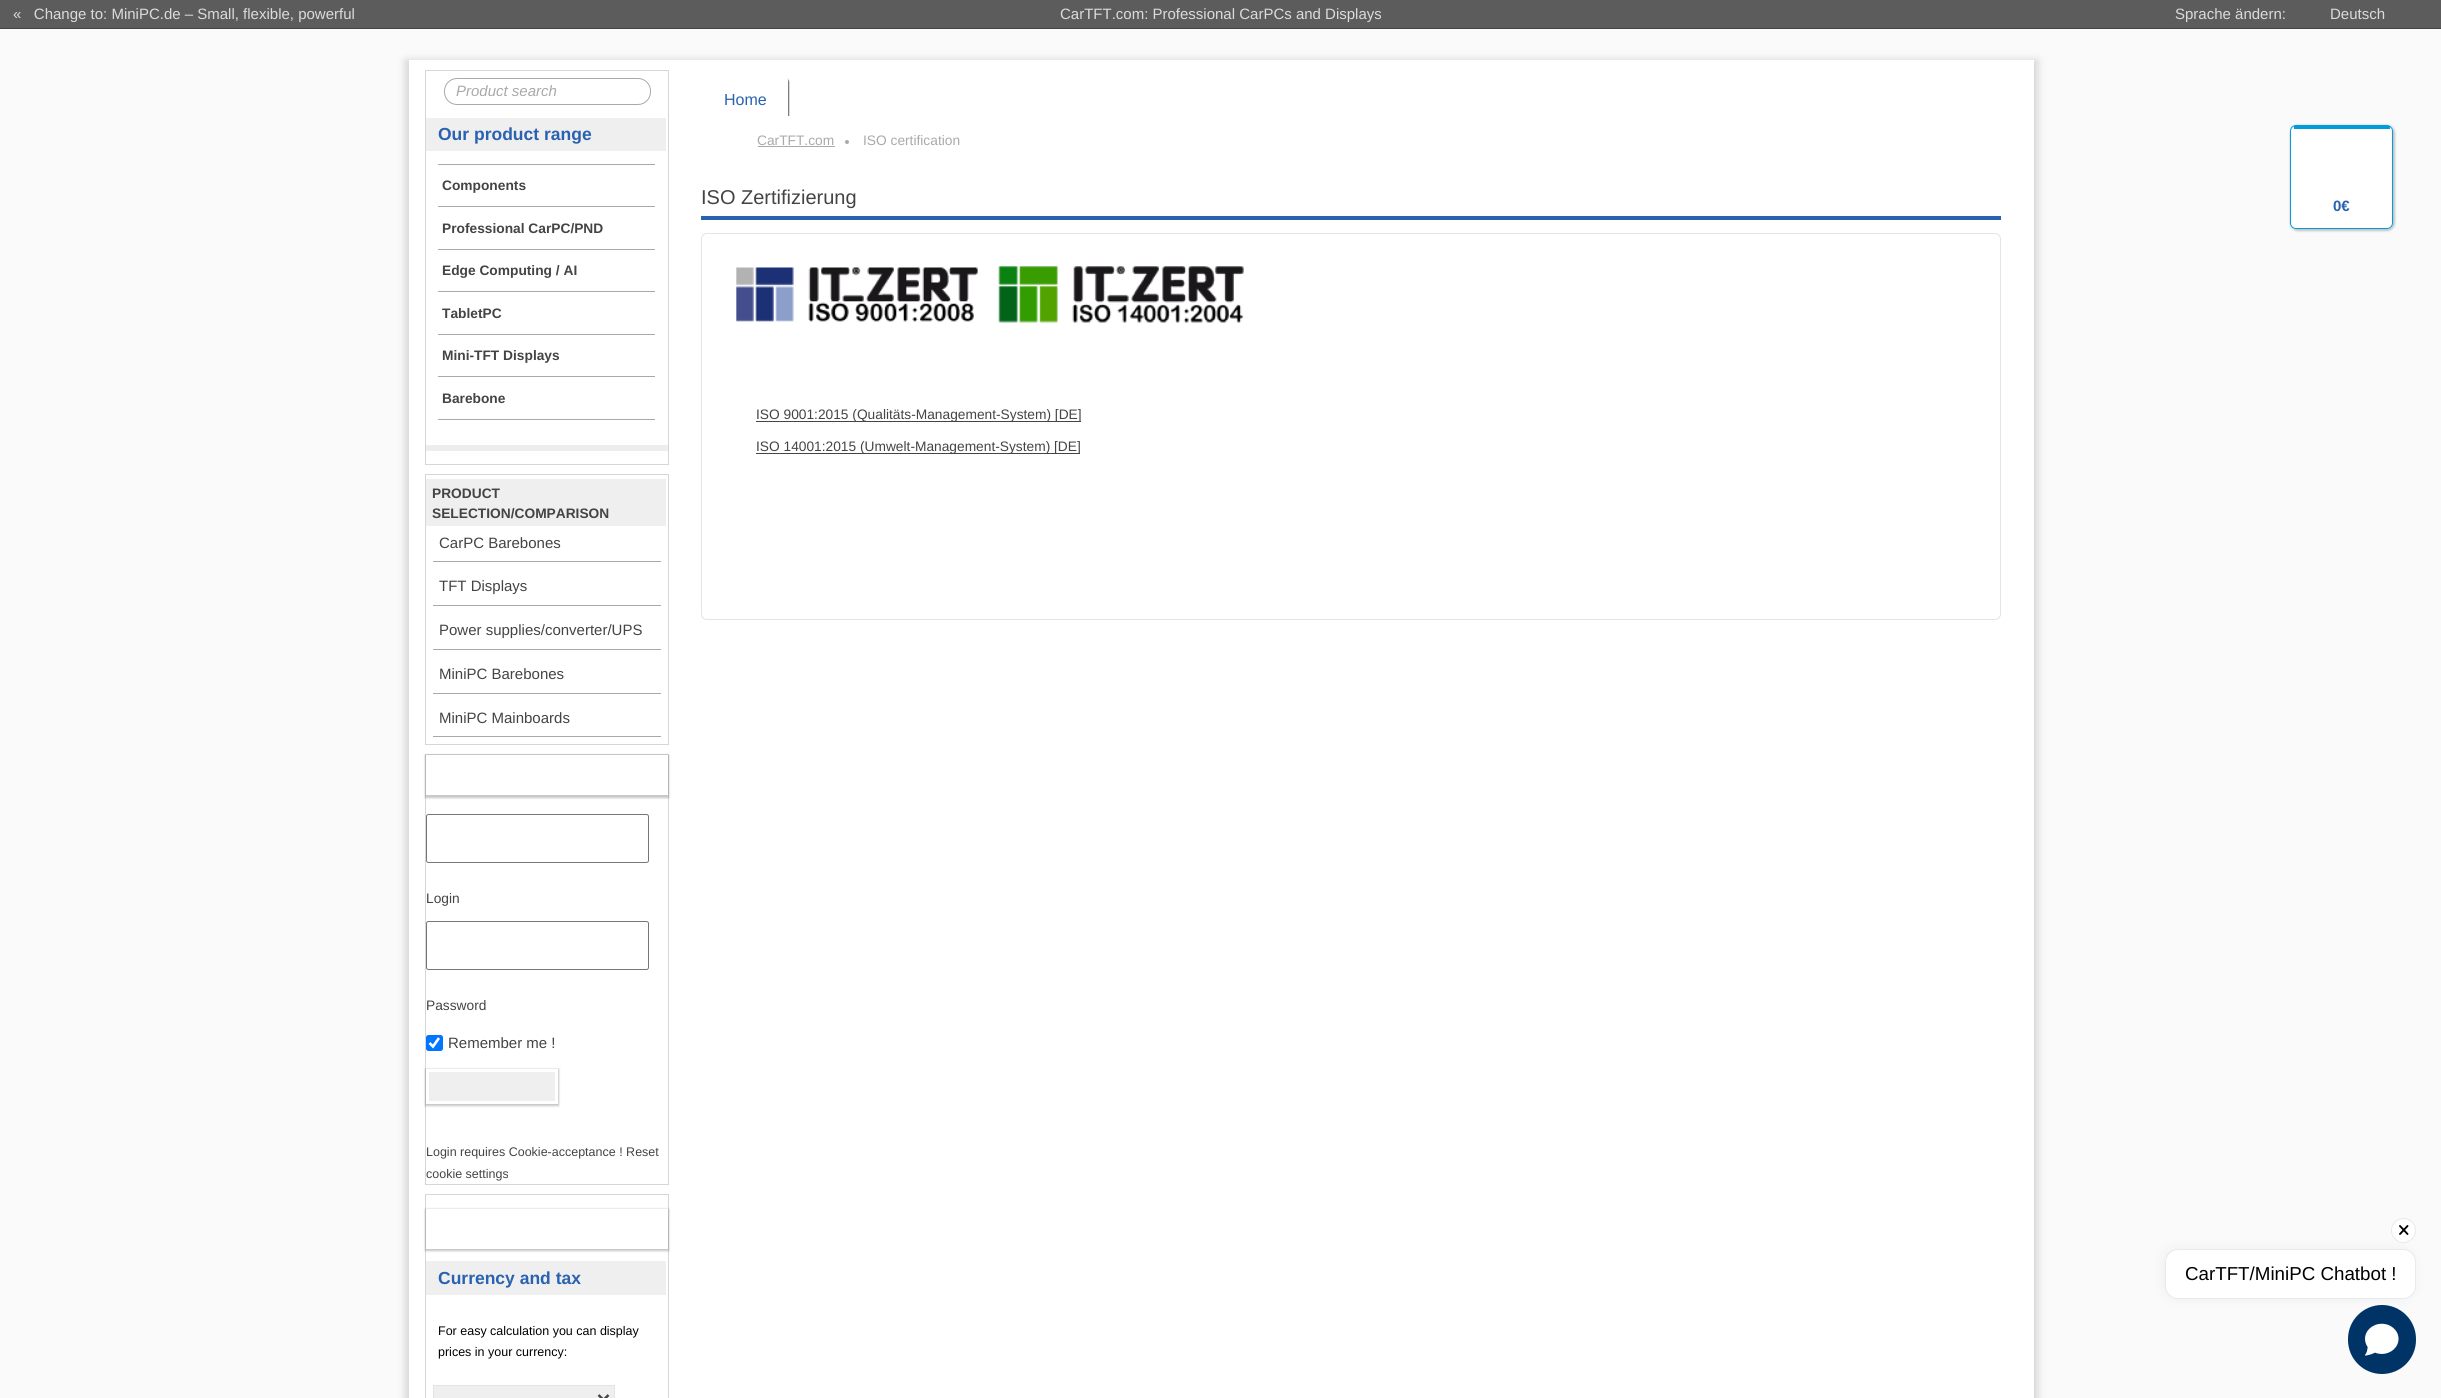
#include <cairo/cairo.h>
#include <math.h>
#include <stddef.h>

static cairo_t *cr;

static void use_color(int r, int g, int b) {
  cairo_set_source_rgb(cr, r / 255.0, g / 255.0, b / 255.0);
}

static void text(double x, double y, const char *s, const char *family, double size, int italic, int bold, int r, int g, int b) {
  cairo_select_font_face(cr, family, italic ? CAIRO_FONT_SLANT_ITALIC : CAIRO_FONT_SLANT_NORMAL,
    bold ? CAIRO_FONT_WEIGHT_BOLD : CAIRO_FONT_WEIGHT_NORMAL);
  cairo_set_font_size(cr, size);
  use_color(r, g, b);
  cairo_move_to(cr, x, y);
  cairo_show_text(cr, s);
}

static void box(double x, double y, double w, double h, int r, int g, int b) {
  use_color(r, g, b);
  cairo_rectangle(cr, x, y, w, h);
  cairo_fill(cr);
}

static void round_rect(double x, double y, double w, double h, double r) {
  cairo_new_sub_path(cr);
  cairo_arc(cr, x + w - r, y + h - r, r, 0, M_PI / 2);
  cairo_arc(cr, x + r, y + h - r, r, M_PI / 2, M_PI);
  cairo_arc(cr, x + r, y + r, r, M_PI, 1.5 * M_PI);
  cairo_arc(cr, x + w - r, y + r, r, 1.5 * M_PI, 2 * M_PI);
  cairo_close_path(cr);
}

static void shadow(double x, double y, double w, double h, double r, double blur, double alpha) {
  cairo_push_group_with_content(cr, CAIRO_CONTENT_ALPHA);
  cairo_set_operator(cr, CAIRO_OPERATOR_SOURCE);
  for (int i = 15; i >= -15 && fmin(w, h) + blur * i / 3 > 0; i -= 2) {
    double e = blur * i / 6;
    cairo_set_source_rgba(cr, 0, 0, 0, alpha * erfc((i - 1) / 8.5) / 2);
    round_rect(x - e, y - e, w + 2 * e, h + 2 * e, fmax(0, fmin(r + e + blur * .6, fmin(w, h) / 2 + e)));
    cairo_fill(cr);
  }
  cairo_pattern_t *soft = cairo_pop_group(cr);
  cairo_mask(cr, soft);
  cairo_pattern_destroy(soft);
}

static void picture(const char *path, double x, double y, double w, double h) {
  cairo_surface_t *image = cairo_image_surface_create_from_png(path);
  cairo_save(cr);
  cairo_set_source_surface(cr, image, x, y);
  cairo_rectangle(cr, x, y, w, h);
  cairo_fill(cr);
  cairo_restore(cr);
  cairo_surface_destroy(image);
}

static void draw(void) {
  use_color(250, 250, 250);
  cairo_paint(cr);
  box(0, 0, 2441, 28, 92, 92, 92);
  box(0, 28, 2441, 1, 68, 68, 68);
  use_color(68, 68, 68);
  shadow(405, 60, 1633, 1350, 0, 4, 0.2);
  box(409, 60, 1625, 1338, 255, 255, 255);
  cairo_rectangle(cr, 425.5, 83.5, 243, 381);
  use_color(214, 214, 214);
  cairo_set_line_width(cr, 1);
  cairo_stroke(cr);
  box(426, 83, 242, 1, 255, 255, 255);
  box(425, 70, 244, 1, 214, 214, 214);
  box(668, 70, 1, 14, 214, 214, 214);
  box(425, 70, 1, 14, 214, 214, 214);
  round_rect(444.5, 78.5, 206, 26, 12.5);
  use_color(169, 169, 169);
  cairo_stroke(cr);
  box(426, 118, 240, 33, 239, 239, 239);
  box(438, 164, 217, 1, 169, 169, 169);
  box(438, 206, 217, 1, 169, 169, 169);
  box(438, 249, 217, 1, 169, 169, 169);
  box(438, 291, 217, 1, 169, 169, 169);
  box(438, 334, 217, 1, 169, 169, 169);
  box(438, 376, 217, 1, 169, 169, 169);
  box(438, 419, 217, 1, 169, 169, 169);
  box(426, 445, 242, 6, 237, 237, 237);
  cairo_rectangle(cr, 425.5, 474.5, 243, 270);
  use_color(214, 214, 214);
  cairo_stroke(cr);
  box(426, 479, 240, 47, 239, 239, 239);
  box(433, 561, 228, 1, 169, 169, 169);
  box(433, 605, 228, 1, 169, 169, 169);
  box(433, 649, 228, 1, 169, 169, 169);
  box(433, 693, 228, 1, 169, 169, 169);
  box(433, 736, 228, 1, 169, 169, 169);
  cairo_rectangle(cr, 425.5, 754.5, 243, 430);
  use_color(214, 214, 214);
  cairo_stroke(cr);
  cairo_save(cr);
  cairo_set_fill_rule(cr, CAIRO_FILL_RULE_EVEN_ODD);
  cairo_new_path(cr);
  cairo_move_to(cr, 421, 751);
  cairo_line_to(cr, 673, 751);
  cairo_line_to(cr, 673, 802);
  cairo_line_to(cr, 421, 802);
  cairo_close_path(cr);
  cairo_move_to(cr, 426, 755);
  cairo_line_to(cr, 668, 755);
  cairo_line_to(cr, 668, 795);
  cairo_line_to(cr, 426, 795);
  cairo_close_path(cr);
  cairo_clip(cr);
  use_color(68, 68, 68);
  shadow(425, 755, 244, 43, 0, 1, 0.3);
  cairo_restore(cr);
  cairo_rectangle(cr, 427.5, 756.5, 239, 37);
  use_color(255, 255, 255);
  cairo_set_line_width(cr, 3);
  cairo_stroke(cr);
  round_rect(426.5, 814.5, 222, 48, 2);
  use_color(118, 118, 118);
  cairo_set_line_width(cr, 1);
  cairo_stroke(cr);
  round_rect(426.5, 921.5, 222, 48, 2);
  cairo_stroke(cr);
  use_color(0, 117, 255);
  round_rect(426, 1035, 17, 16, 2.5);
  cairo_fill(cr);
  cairo_new_path(cr);
  cairo_move_to(cr, 429.5, 1043);
  cairo_line_to(cr, 433, 1046.5);
  cairo_line_to(cr, 439, 1038);
  use_color(255, 255, 255);
  cairo_set_line_width(cr, 2.6);
  cairo_stroke(cr);
  use_color(68, 68, 68);
  shadow(425, 1069, 134, 37, 0, 1, 0.3);
  use_color(239, 239, 239);
  cairo_rectangle(cr, 427.5, 1070.5, 129, 32);
  cairo_fill_preserve(cr);
  use_color(255, 255, 255);
  cairo_set_line_width(cr, 3);
  cairo_stroke(cr);
  cairo_rectangle(cr, 425.5, 1194.5, 243, 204);
  use_color(214, 214, 214);
  cairo_set_line_width(cr, 1);
  cairo_stroke(cr);
  cairo_save(cr);
  cairo_set_fill_rule(cr, CAIRO_FILL_RULE_EVEN_ODD);
  cairo_new_path(cr);
  cairo_move_to(cr, 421, 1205);
  cairo_line_to(cr, 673, 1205);
  cairo_line_to(cr, 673, 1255);
  cairo_line_to(cr, 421, 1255);
  cairo_close_path(cr);
  cairo_move_to(cr, 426, 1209);
  cairo_line_to(cr, 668, 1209);
  cairo_line_to(cr, 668, 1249);
  cairo_line_to(cr, 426, 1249);
  cairo_close_path(cr);
  cairo_clip(cr);
  use_color(68, 68, 68);
  shadow(425, 1209, 244, 42, 0, 1, 0.3);
  cairo_restore(cr);
  cairo_rectangle(cr, 427.5, 1210.5, 239, 37);
  use_color(255, 255, 255);
  cairo_set_line_width(cr, 3);
  cairo_stroke(cr);
  box(426, 1261, 240, 34, 239, 239, 239);
  cairo_rectangle(cr, 433.5, 1385.5, 181, 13);
  cairo_fill_preserve(cr);
  use_color(228, 228, 230);
  cairo_set_line_width(cr, 1);
  cairo_stroke(cr);
  cairo_new_path(cr);
  cairo_move_to(cr, 598.5, 1395);
  cairo_line_to(cr, 603.5, 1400);
  cairo_line_to(cr, 608.5, 1395);
  use_color(68, 68, 68);
  cairo_set_line_width(cr, 2.5);
  cairo_stroke(cr);
  use_color(68, 68, 68);
  shadow(706, 78, 83, 46, 4, 0.5, 0.8);
  use_color(255, 255, 255);
  round_rect(705, 76, 83, 47, 4);
  cairo_fill(cr);
  box(705, 116, 85, 9, 255, 255, 255);
  box(758, 146, 77, 1, 169, 169, 169);
  cairo_arc(cr, 847, 142, 2, 0, 2 * M_PI);
  cairo_fill(cr);
  box(701, 216, 1300, 4, 40, 98, 176);
  round_rect(701.5, 233.5, 1299, 386, 5.5);
  use_color(228, 228, 230);
  cairo_set_line_width(cr, 1);
  cairo_stroke(cr);
  picture("img_01.png", 736, 267, 242, 55);
  picture("img_02.png", 998, 266, 246, 57);
  box(756, 421, 325, 1, 68, 68, 68);
  box(756, 453, 324, 1, 68, 68, 68);
  cairo_save(cr);
  cairo_set_fill_rule(cr, CAIRO_FILL_RULE_EVEN_ODD);
  cairo_new_path(cr);
  cairo_move_to(cr, 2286, 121);
  cairo_line_to(cr, 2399, 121);
  cairo_line_to(cr, 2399, 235);
  cairo_line_to(cr, 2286, 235);
  cairo_close_path(cr);
  cairo_move_to(cr, 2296, 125);
  cairo_line_to(cr, 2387, 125);
  cairo_curve_to(cr, 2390.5, 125, 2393, 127.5, 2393, 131);
  cairo_line_to(cr, 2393, 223);
  cairo_curve_to(cr, 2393, 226.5, 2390.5, 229, 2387, 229);
  cairo_line_to(cr, 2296, 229);
  cairo_curve_to(cr, 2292.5, 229, 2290, 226.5, 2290, 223);
  cairo_line_to(cr, 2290, 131);
  cairo_curve_to(cr, 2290, 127.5, 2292.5, 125, 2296, 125);
  cairo_close_path(cr);
  cairo_clip(cr);
  use_color(68, 68, 68);
  shadow(2290, 125, 105, 106, 8, 1, 0.3);
  cairo_restore(cr);
  use_color(255, 255, 255);
  cairo_new_path(cr);
  cairo_move_to(cr, 2296, 129);
  cairo_line_to(cr, 2386, 129);
  cairo_curve_to(cr, 2389, 129, 2391, 130, 2391, 131);
  cairo_line_to(cr, 2391, 222);
  cairo_curve_to(cr, 2391, 225, 2389, 228, 2386, 228);
  cairo_line_to(cr, 2296, 228);
  cairo_curve_to(cr, 2293, 228, 2291, 225, 2291, 222);
  cairo_line_to(cr, 2291, 131);
  cairo_curve_to(cr, 2291, 130, 2293, 129, 2296, 129);
  cairo_close_path(cr);
  cairo_fill(cr);
  round_rect(2290.5, 125.5, 102, 103, 5.5);
  use_color(0, 157, 218);
  cairo_stroke(cr);
  box(2294, 126, 96, 3, 0, 157, 218);
  use_color(0, 51, 102);
  round_rect(2348, 1305, 68, 69, 34);
  cairo_fill(cr);
  use_color(0, 0, 0);
  shadow(2163, 1249, 251, 50, 13, 6, 0.05);
  use_color(255, 255, 255);
  cairo_arc(cr, 2403.5, 1230.5, 12, 0, 2 * M_PI);
  cairo_fill_preserve(cr);
  use_color(230, 233, 238);
  cairo_stroke(cr);
  cairo_new_path(cr);
  cairo_move_to(cr, 2400, 1234);
  cairo_line_to(cr, 2407.5, 1226);
  cairo_move_to(cr, 2400, 1226);
  cairo_line_to(cr, 2407.5, 1234);
  use_color(0, 0, 0);
  cairo_set_line_width(cr, 1.9);
  cairo_set_line_cap(cr, CAIRO_LINE_CAP_ROUND);
  cairo_set_line_join(cr, CAIRO_LINE_JOIN_ROUND);
  cairo_stroke(cr);
  use_color(255, 255, 255);
  round_rect(2165.5, 1249.5, 250, 49, 12.5);
  cairo_fill_preserve(cr);
  use_color(230, 233, 238);
  cairo_set_line_width(cr, 1);
  cairo_set_line_cap(cr, CAIRO_LINE_CAP_BUTT);
  cairo_set_line_join(cr, CAIRO_LINE_JOIN_MITER);
  cairo_stroke(cr);
  picture("img_03.png", 2365, 1323, 34, 33);
  text(13, 19, "«   Change to: MiniPC.de – Small, flexible, powerful", "Liberation Sans", 15, 0, 0, 219, 219, 219);
  text(1060, 19, "CarTFT.com: Professional CarPCs and Displays", "Liberation Sans", 15, 0, 0, 219, 219, 219);
  text(2175, 19, "Sprache ändern:", "Liberation Sans", 15, 0, 0, 219, 219, 219);
  text(2330, 19, "Deutsch", "Liberation Sans", 15, 0, 0, 219, 219, 219);
  text(456, 96, "Product search", "Liberation Sans", 15, 1, 0, 169, 169, 169);
  text(438, 140, "Our product range", "Liberation Sans", 17.5, 0, 1, 40, 98, 176);
  text(442, 190, "Components", "Liberation Sans", 13.75, 0, 1, 68, 68, 68);
  text(442, 233, "Professional CarPC/PND", "Liberation Sans", 13.75, 0, 1, 68, 68, 68);
  text(442, 275, "Edge Computing / AI", "Liberation Sans", 13.75, 0, 1, 68, 68, 68);
  text(442, 318, "TabletPC", "Liberation Sans", 13.75, 0, 1, 68, 68, 68);
  text(442, 360, "Mini-TFT Displays", "Liberation Sans", 13.75, 0, 1, 68, 68, 68);
  text(442, 403, "Barebone", "Liberation Sans", 13.75, 0, 1, 68, 68, 68);
  text(432, 498, "PRODUCT", "Liberation Sans", 13.75, 0, 1, 68, 68, 68);
  text(432, 518, "SELECTION/COMPARISON", "Liberation Sans", 13.75, 0, 1, 68, 68, 68);
  text(439, 548, "CarPC Barebones", "Liberation Sans", 15, 0, 0, 68, 68, 68);
  text(439, 591, "TFT Displays", "Liberation Sans", 15, 0, 0, 68, 68, 68);
  text(439, 635, "Power supplies/converter/UPS", "Liberation Sans", 15, 0, 0, 68, 68, 68);
  text(439, 679, "MiniPC Barebones", "Liberation Sans", 15, 0, 0, 68, 68, 68);
  text(439, 723, "MiniPC Mainboards", "Liberation Sans", 15, 0, 0, 68, 68, 68);
  text(426, 903, "Login", "Liberation Sans", 13.75, 0, 0, 68, 68, 68);
  text(426, 1010, "Password", "Liberation Sans", 13.75, 0, 0, 68, 68, 68);
  text(448, 1048, "Remember me !", "Liberation Sans", 15, 0, 0, 68, 68, 68);
  text(426, 1156, "Login requires Cookie-acceptance ! Reset", "Liberation Sans", 12.5, 0, 0, 68, 68, 68);
  text(426, 1178, "cookie settings", "Liberation Sans", 12.5, 0, 0, 68, 68, 68);
  text(438, 1284, "Currency and tax", "Liberation Sans", 17.5, 0, 1, 40, 98, 176);
  text(438, 1335, "For easy calculation you can display", "Liberation Sans", 12.5, 0, 0, 0, 0, 0);
  text(438, 1356, "prices in your currency:", "Liberation Sans", 12.5, 0, 0, 0, 0, 0);
  text(724, 105, "Home", "Liberation Sans", 16, 0, 0, 40, 98, 176);
  text(757, 145, "CarTFT.com", "Liberation Sans", 13.75, 0, 0, 169, 169, 169);
  text(863, 145, "ISO certification", "Liberation Sans", 13.75, 0, 0, 169, 169, 169);
  text(701, 204, "ISO Zertifizierung", "Liberation Sans", 20, 0, 0, 68, 68, 68);
  text(756, 419, "ISO 9001:2015 (Qualitäts-Management-System) [DE]", "Liberation Sans", 13.75, 0, 0, 68, 68, 68);
  text(756, 451, "ISO 14001:2015 (Umwelt-Management-System) [DE]", "Liberation Sans", 13.75, 0, 0, 68, 68, 68);
  text(2333, 211, "0€", "Liberation Sans", 15, 0, 1, 40, 98, 176);
  text(2185, 1280, "CarTFT/MiniPC Chatbot !", "Liberation Sans", 18.75, 0, 0, 0, 0, 0);
}

int main(void) {
  cairo_surface_t *surface = cairo_image_surface_create(CAIRO_FORMAT_RGB24, 2441, 1398);
  cr = cairo_create(surface);
  cairo_font_options_t *options = cairo_font_options_create();
  cairo_font_options_set_hint_metrics(options, CAIRO_HINT_METRICS_OFF);
  cairo_font_options_set_hint_style(options, CAIRO_HINT_STYLE_NONE);
  cairo_set_font_options(cr, options);
  cairo_set_miter_limit(cr, 4);
  draw();
  cairo_surface_write_to_png(surface, "out.png");
  cairo_font_options_destroy(options);
  cairo_destroy(cr);
  cairo_surface_destroy(surface);
  return 0;
}
